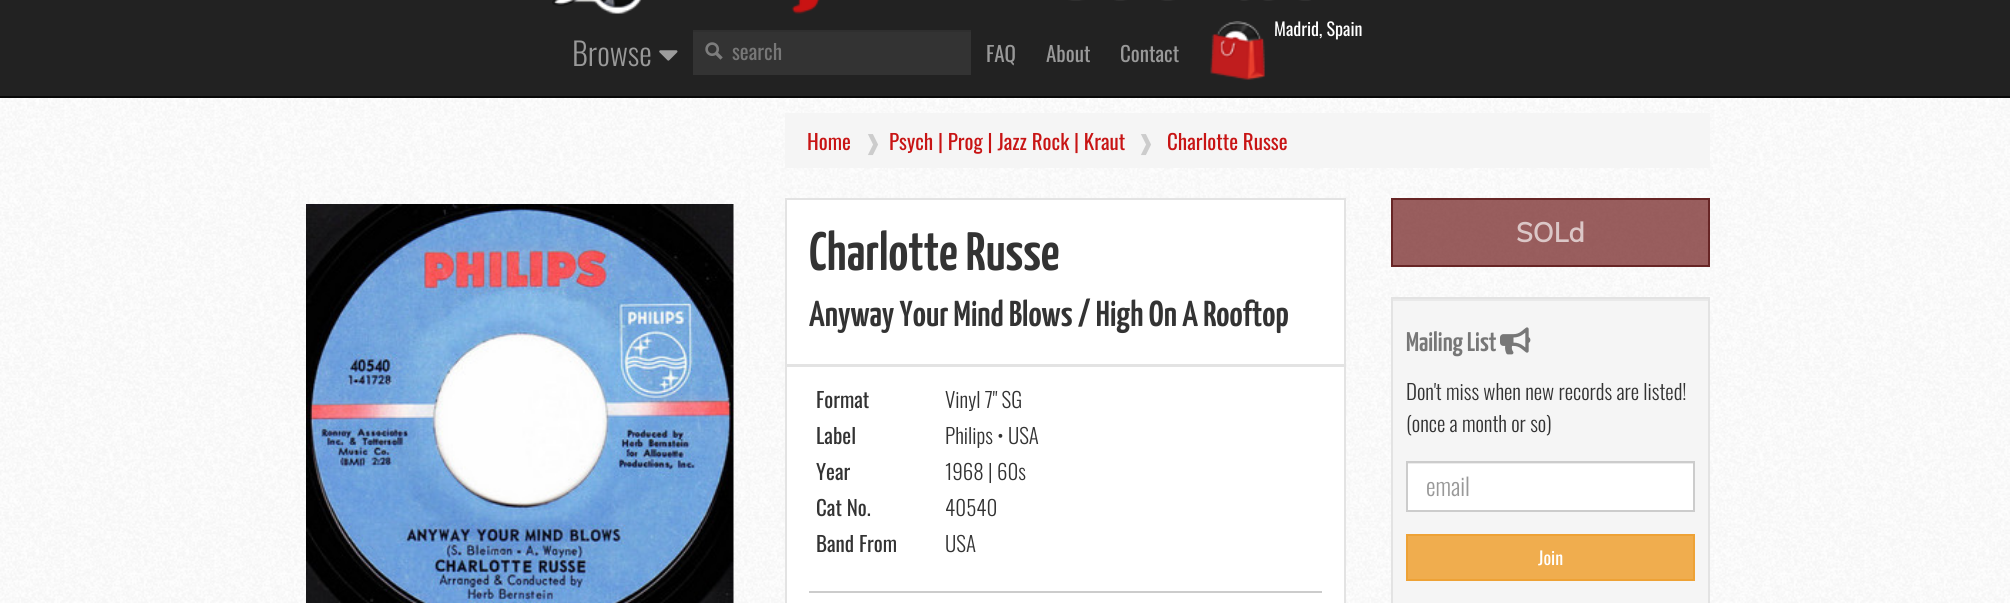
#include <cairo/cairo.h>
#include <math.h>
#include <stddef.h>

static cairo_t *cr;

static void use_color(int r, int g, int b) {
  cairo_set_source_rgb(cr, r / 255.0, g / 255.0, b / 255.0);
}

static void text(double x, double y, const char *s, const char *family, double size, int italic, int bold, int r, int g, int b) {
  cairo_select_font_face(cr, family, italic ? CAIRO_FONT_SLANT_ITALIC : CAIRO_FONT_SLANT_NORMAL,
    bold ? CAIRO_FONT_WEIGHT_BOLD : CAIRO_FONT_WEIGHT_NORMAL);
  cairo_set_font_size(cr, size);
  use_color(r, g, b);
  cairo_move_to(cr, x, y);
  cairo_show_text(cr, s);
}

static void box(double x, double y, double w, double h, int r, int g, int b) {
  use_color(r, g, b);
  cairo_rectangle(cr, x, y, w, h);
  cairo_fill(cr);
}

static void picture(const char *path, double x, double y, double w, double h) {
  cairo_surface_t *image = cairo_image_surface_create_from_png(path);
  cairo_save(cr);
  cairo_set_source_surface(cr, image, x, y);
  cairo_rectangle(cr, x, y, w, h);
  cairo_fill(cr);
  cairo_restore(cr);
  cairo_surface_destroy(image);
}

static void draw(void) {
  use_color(255, 255, 255);
  cairo_paint(cr);
  picture("img_01.png", 0, 98, 2010, 505);
  box(0, 0, 2010, 96, 34, 34, 34);
  box(0, 96, 2010, 2, 8, 8, 8);
  picture("img_02.png", 552, 0, 759, 14);
  picture("img_03.png", 659, 50, 19, 11);
  picture("img_04.png", 1210, 21, 55, 59);
  box(693, 32, 278, 43, 51, 51, 51);
  picture("img_05.png", 705, 42, 18, 18);
  box(693, 30, 278, 2, 47, 47, 47);
  box(785, 113, 925, 55, 245, 245, 245);
  picture("img_06.png", 306, 204, 428, 399);
  use_color(255, 255, 255);
  cairo_rectangle(cr, 786, 199, 559, 166);
  cairo_fill_preserve(cr);
  use_color(227, 227, 227);
  cairo_stroke(cr);
  use_color(255, 255, 255);
  cairo_rectangle(cr, 786, 366, 559, 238);
  cairo_fill_preserve(cr);
  use_color(227, 227, 227);
  cairo_stroke(cr);
  box(809, 591, 513, 2, 204, 204, 204);
  cairo_set_source_rgba(cr, 0.392, 0.039, 0.039, 0.65);
  cairo_rectangle(cr, 1391, 198, 319, 69);
  cairo_fill(cr);
  cairo_rectangle(cr, 1392, 199, 317, 67);
  cairo_set_source_rgba(cr, 0.302, 0.031, 0.031, 0.65);
  cairo_stroke(cr);
  box(1393, 301, 315, 302, 245, 245, 245);
  box(1392, 299, 317, 2, 233, 233, 233);
  cairo_rectangle(cr, 1392, 298, 317, 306);
  use_color(227, 227, 227);
  cairo_stroke(cr);
  picture("img_07.png", 1500, 327, 31, 28);
  box(1408, 464, 285, 46, 255, 255, 255);
  box(1407, 463, 287, 1, 236, 236, 236);
  cairo_rectangle(cr, 1407, 462, 287, 49);
  use_color(204, 204, 204);
  cairo_stroke(cr);
  use_color(240, 173, 78);
  cairo_rectangle(cr, 1407, 535, 287, 45);
  cairo_fill_preserve(cr);
  use_color(238, 162, 54);
  cairo_stroke(cr);
  text(572, 66, "Browse", "Oswald Light", 31.5, 0, 0, 153, 153, 153);
  text(1274, 36, "Madrid, Spain", "Oswald", 18, 0, 0, 255, 255, 255);
  text(732, 60, "search", "Oswald", 21, 0, 0, 119, 119, 119);
  text(986, 62, "FAQ", "Oswald", 21, 0, 0, 153, 153, 153);
  text(1046, 62, "About", "Oswald", 21, 0, 0, 153, 153, 153);
  text(1120, 62, "Contact", "Oswald", 21, 0, 0, 153, 153, 153);
  text(807, 150, "Home", "Oswald", 21, 0, 0, 200, 20, 20);
  text(864, 150, "❱", "DejaVu Sans", 21, 0, 0, 204, 204, 204);
  text(889, 150, "Psych | Prog | Jazz Rock | Kraut", "Oswald", 21, 0, 0, 200, 20, 20);
  text(1137, 150, "❱", "DejaVu Sans", 21, 0, 0, 204, 204, 204);
  text(1167, 150, "Charlotte Russe", "Oswald", 21, 0, 0, 200, 20, 20);
  text(809, 270, "Charlotte Russe", "Yanone Kaffeesatz SemiBold", 54, 0, 0, 51, 51, 51);
  text(809, 326, "Anyway Your Mind Blows / High On A Rooftop", "Yanone Kaffeesatz SemiBold", 36, 0, 0, 51, 51, 51);
  text(816, 408, "Format", "Oswald", 21, 0, 0, 51, 51, 51);
  text(945, 408, "Vinyl 7\" SG", "Oswald Light", 21, 0, 0, 51, 51, 51);
  text(816, 444, "Label", "Oswald", 21, 0, 0, 51, 51, 51);
  text(945, 444, "Philips • USA", "Oswald Light", 21, 0, 0, 51, 51, 51);
  text(816, 480, "Year", "Oswald", 21, 0, 0, 51, 51, 51);
  text(945, 480, "1968 | 60s", "Oswald Light", 21, 0, 0, 51, 51, 51);
  text(816, 516, "Cat No.", "Oswald", 21, 0, 0, 51, 51, 51);
  text(945, 516, "40540", "Oswald Light", 21, 0, 0, 51, 51, 51);
  text(816, 552, "Band From", "Oswald", 21, 0, 0, 51, 51, 51);
  text(945, 552, "USA", "Oswald Light", 21, 0, 0, 51, 51, 51);
  text(1516, 242, "SOLd", "Muli", 27, 0, 1, 219, 199, 199);
  text(1406, 351, "Mailing List", "Yanone Kaffeesatz SemiBold", 27, 0, 0, 119, 119, 119);
  text(1406, 400, "Don't miss when new records are listed!", "Oswald Light", 21, 0, 0, 51, 51, 51);
  text(1406, 432, "(once a month or so)", "Oswald Light", 21, 0, 0, 51, 51, 51);
  text(1426, 496, "email", "Oswald Light", 24, 0, 0, 153, 153, 153);
  text(1538, 565, "Join", "Oswald", 18, 0, 0, 255, 255, 255);
}

int main(void) {
  cairo_surface_t *surface = cairo_image_surface_create(CAIRO_FORMAT_RGB24, 2010, 603);
  cr = cairo_create(surface);
  cairo_font_options_t *options = cairo_font_options_create();
  cairo_font_options_set_hint_metrics(options, CAIRO_HINT_METRICS_OFF);
  cairo_font_options_set_hint_style(options, CAIRO_HINT_STYLE_NONE);
  cairo_set_font_options(cr, options);
  cairo_set_miter_limit(cr, 4);
  draw();
  cairo_surface_write_to_png(surface, "out.png");
  cairo_font_options_destroy(options);
  cairo_destroy(cr);
  cairo_surface_destroy(surface);
  return 0;
}
